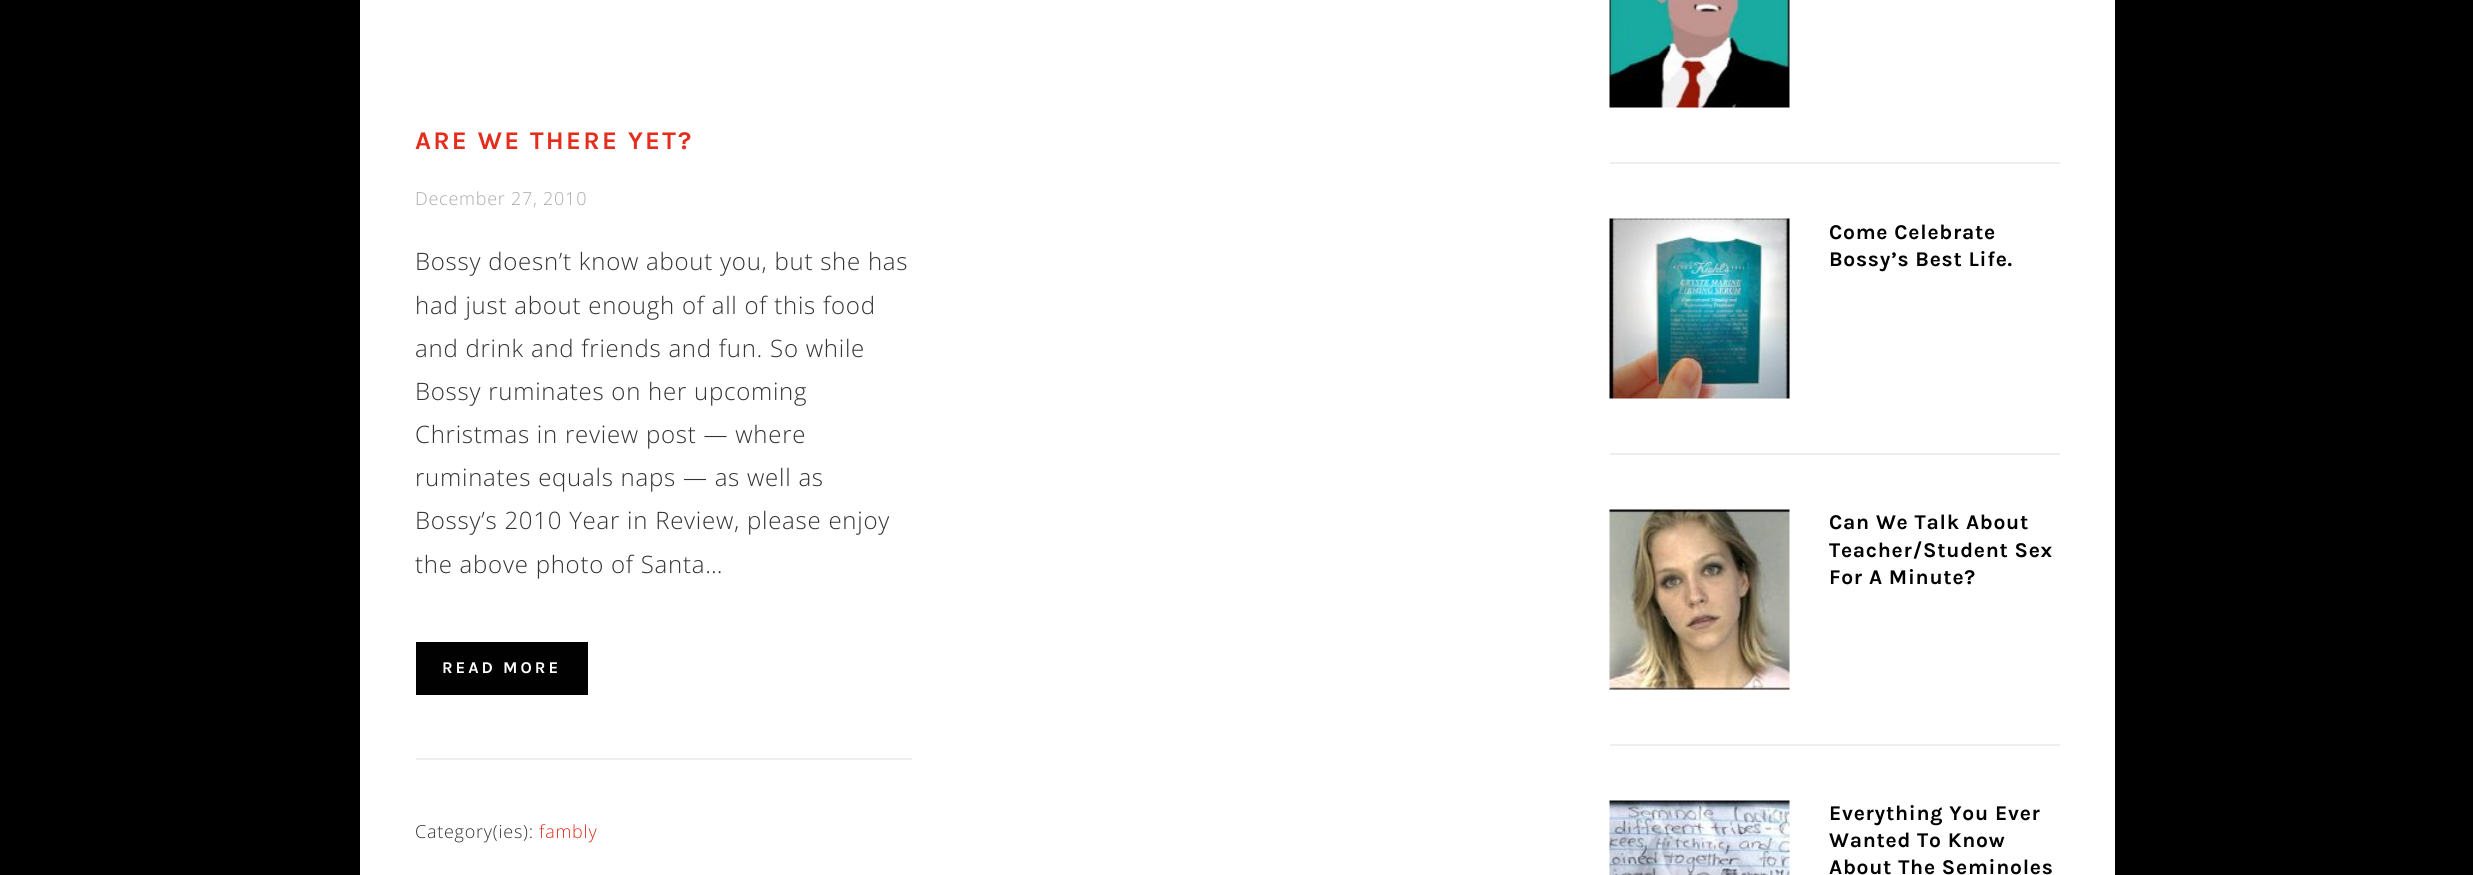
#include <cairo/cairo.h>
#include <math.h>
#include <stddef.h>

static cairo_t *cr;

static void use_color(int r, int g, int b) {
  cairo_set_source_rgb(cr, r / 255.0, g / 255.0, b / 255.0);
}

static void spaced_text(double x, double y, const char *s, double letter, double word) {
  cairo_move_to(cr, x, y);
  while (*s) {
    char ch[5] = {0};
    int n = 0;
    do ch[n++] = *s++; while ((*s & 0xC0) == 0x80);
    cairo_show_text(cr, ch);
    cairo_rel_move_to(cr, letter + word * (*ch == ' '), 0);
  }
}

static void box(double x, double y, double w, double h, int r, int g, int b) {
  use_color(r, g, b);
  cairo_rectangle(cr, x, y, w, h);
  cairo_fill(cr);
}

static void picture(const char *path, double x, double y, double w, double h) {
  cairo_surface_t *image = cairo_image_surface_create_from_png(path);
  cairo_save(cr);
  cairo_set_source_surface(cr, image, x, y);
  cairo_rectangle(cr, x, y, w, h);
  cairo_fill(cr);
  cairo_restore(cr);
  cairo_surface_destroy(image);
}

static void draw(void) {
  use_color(0, 0, 0);
  cairo_paint(cr);
  box(360, 0, 1755, 875, 255, 255, 255);
  box(416, 642, 172, 53, 1, 1, 1);
  box(416, 758, 496, 2, 238, 238, 238);
  box(1610, 162, 450, 2, 238, 238, 238);
  picture("img_01.png", 1609, 0, 181, 108);
  box(1610, 453, 450, 2, 238, 238, 238);
  picture("img_02.png", 1609, 218, 181, 181);
  box(1610, 744, 450, 2, 238, 238, 238);
  picture("img_03.png", 1609, 509, 181, 181);
  picture("img_04.png", 1609, 800, 181, 75);
  cairo_select_font_face(cr, "Karla", CAIRO_FONT_SLANT_NORMAL, CAIRO_FONT_WEIGHT_BOLD);
  cairo_set_font_size(cr, 25.5);
  use_color(228, 45, 28);
  spaced_text(415, 149, "ARE WE THERE YET?", 2.25, 0);
  cairo_select_font_face(cr, "Open Sans Light", CAIRO_FONT_SLANT_NORMAL, CAIRO_FONT_WEIGHT_NORMAL);
  cairo_set_font_size(cr, 18);
  use_color(170, 170, 170);
  spaced_text(415, 205, "December 27, 2010", 0.75, 0);
  cairo_set_font_size(cr, 24);
  use_color(51, 51, 51);
  spaced_text(415, 270, "Bossy doesn’t know about you, but she has", 0.75, 0);
  spaced_text(415, 314, "had just about enough of all of this food", 0.75, 0);
  spaced_text(415, 357, "and drink and friends and fun. So while", 0.75, 0);
  spaced_text(415, 400, "Bossy ruminates on her upcoming", 0.75, 0);
  spaced_text(415, 443, "Christmas in review post — where", 0.75, 0);
  spaced_text(415, 486, "ruminates equals naps — as well as", 0.75, 0);
  spaced_text(415, 529, "Bossy’s 2010 Year in Review, please enjoy", 0.75, 0);
  spaced_text(415, 573, "the above photo of Santa…", 0.75, 0);
  cairo_select_font_face(cr, "Karla", CAIRO_FONT_SLANT_NORMAL, CAIRO_FONT_WEIGHT_BOLD);
  cairo_set_font_size(cr, 16.5);
  use_color(255, 255, 255);
  spaced_text(442, 673, "READ MORE", 3, 0);
  cairo_select_font_face(cr, "Open Sans Light", CAIRO_FONT_SLANT_NORMAL, CAIRO_FONT_WEIGHT_NORMAL);
  cairo_set_font_size(cr, 18);
  use_color(51, 51, 51);
  spaced_text(415, 838, "Category(ies):", 0.75, 0);
  use_color(228, 45, 28);
  spaced_text(539, 838, "fambly", 0.75, 0);
  cairo_select_font_face(cr, "Karla", CAIRO_FONT_SLANT_NORMAL, CAIRO_FONT_WEIGHT_BOLD);
  cairo_set_font_size(cr, 21);
  use_color(1, 1, 1);
  spaced_text(1829, 239, "Come Celebrate", 0.75, 0);
  spaced_text(1829, 266, "Bossy’s Best Life.", 0.75, 0);
  spaced_text(1829, 529, "Can We Talk About", 0.75, 0);
  spaced_text(1829, 557, "Teacher/Student Sex", 0.75, 0);
  spaced_text(1829, 584, "For A Minute?", 0.75, 0);
  spaced_text(1829, 820, "Everything You Ever", 0.75, 0);
  spaced_text(1829, 847, "Wanted To Know", 0.75, 0);
  spaced_text(1829, 874, "About The Seminoles", 0.75, 0);
}

int main(void) {
  cairo_surface_t *surface = cairo_image_surface_create(CAIRO_FORMAT_RGB24, 2473, 875);
  cr = cairo_create(surface);
  cairo_font_options_t *options = cairo_font_options_create();
  cairo_font_options_set_hint_metrics(options, CAIRO_HINT_METRICS_OFF);
  cairo_font_options_set_hint_style(options, CAIRO_HINT_STYLE_NONE);
  cairo_set_font_options(cr, options);
  cairo_set_miter_limit(cr, 4);
  draw();
  cairo_surface_write_to_png(surface, "out.png");
  cairo_font_options_destroy(options);
  cairo_destroy(cr);
  cairo_surface_destroy(surface);
  return 0;
}
